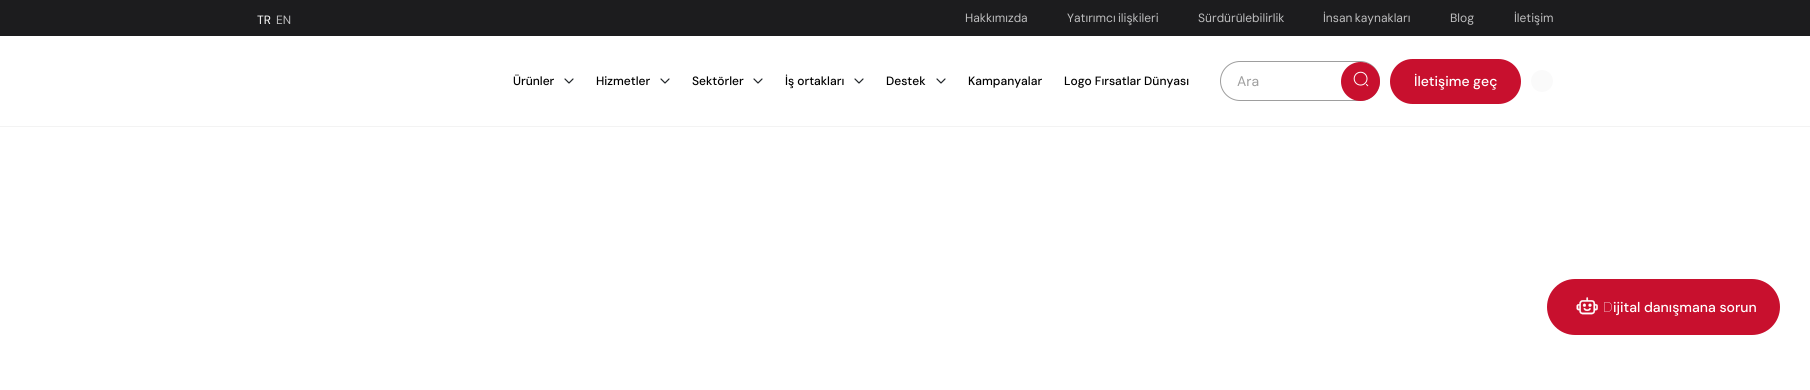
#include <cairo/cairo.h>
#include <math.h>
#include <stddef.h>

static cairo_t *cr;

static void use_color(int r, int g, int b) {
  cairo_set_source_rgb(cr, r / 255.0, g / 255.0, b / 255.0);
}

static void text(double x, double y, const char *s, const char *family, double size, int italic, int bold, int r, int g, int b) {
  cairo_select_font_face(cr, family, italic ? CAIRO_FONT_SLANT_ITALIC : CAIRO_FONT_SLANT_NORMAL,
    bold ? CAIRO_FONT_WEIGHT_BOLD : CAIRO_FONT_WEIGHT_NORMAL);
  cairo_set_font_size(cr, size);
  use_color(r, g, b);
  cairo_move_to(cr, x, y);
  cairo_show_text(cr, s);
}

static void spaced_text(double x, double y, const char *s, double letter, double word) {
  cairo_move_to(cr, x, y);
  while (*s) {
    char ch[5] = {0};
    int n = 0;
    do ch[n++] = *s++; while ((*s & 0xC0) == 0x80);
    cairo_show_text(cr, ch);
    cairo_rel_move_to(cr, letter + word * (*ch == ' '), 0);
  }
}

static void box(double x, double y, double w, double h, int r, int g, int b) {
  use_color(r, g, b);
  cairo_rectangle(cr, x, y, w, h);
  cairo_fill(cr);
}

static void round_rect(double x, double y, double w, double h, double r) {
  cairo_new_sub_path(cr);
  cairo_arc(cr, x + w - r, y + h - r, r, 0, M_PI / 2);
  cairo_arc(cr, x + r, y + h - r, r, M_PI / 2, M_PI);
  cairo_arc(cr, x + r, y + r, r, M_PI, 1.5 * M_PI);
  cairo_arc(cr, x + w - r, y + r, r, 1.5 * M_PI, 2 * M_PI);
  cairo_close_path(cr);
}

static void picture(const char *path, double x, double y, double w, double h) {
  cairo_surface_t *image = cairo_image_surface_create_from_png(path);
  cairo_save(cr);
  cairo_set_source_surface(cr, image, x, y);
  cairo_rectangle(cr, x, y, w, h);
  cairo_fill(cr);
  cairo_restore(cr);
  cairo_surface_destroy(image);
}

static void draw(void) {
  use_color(255, 255, 255);
  cairo_paint(cr);
  box(0, 126, 1810, 1, 243, 243, 243);
  box(0, 0, 1810, 36, 28, 28, 30);
  cairo_new_path(cr);
  cairo_move_to(cr, 565, 79);
  cairo_line_to(cr, 569, 83);
  cairo_line_to(cr, 573, 79);
  use_color(33, 37, 41);
  cairo_set_line_width(cr, 1.2);
  cairo_set_line_cap(cr, CAIRO_LINE_CAP_ROUND);
  cairo_set_line_join(cr, CAIRO_LINE_JOIN_ROUND);
  cairo_stroke(cr);
  cairo_new_path(cr);
  cairo_move_to(cr, 661, 79);
  cairo_line_to(cr, 665, 83);
  cairo_line_to(cr, 669, 79);
  cairo_stroke(cr);
  cairo_new_path(cr);
  cairo_move_to(cr, 754, 79);
  cairo_line_to(cr, 758, 83);
  cairo_line_to(cr, 762, 79);
  cairo_stroke(cr);
  cairo_new_path(cr);
  cairo_move_to(cr, 855, 79);
  cairo_line_to(cr, 859, 83);
  cairo_line_to(cr, 863, 79);
  cairo_stroke(cr);
  cairo_new_path(cr);
  cairo_move_to(cr, 937, 79);
  cairo_line_to(cr, 941, 83);
  cairo_line_to(cr, 945, 79);
  cairo_stroke(cr);
  round_rect(1220.5, 61.5, 159, 39, 19.5);
  use_color(158, 158, 158);
  cairo_set_line_width(cr, 1);
  cairo_set_line_cap(cr, CAIRO_LINE_CAP_BUTT);
  cairo_set_line_join(cr, CAIRO_LINE_JOIN_MITER);
  cairo_stroke(cr);
  use_color(200, 16, 46);
  cairo_arc(cr, 1360.5, 81.5, 19.5, 0, 2 * M_PI);
  cairo_fill(cr);
  picture("img_01.png", 1353, 71, 16, 16);
  round_rect(1390, 59, 131, 45, 22.5);
  cairo_fill(cr);
  use_color(250, 250, 250);
  cairo_arc(cr, 1542, 81, 11, 0, 2 * M_PI);
  cairo_fill(cr);
  use_color(200, 16, 46);
  round_rect(1547, 279, 233, 56, 28);
  cairo_fill(cr);
  picture("img_02.png", 1576, 297, 22, 18);
  text(257, 24, "TR", "DM Sans", 12, 0, 0, 255, 255, 255);
  text(276, 24, "EN", "DM Sans", 12, 0, 0, 191, 191, 192);
  text(965, 22, "Hakkımızda", "DM Sans", 12, 0, 0, 191, 191, 192);
  spaced_text(1067, 22, "Yatırımcı ilişkileri", 0, -1);
  text(1198, 22, "Sürdürülebilirlik", "DM Sans", 12, 0, 0, 191, 191, 192);
  spaced_text(1323, 22, "İnsan kaynakları", 0, -1);
  text(1450, 22, "Blog", "DM Sans", 12, 0, 0, 191, 191, 192);
  text(1514, 22, "İletişim", "DM Sans", 12, 0, 0, 191, 191, 192);
  text(513, 85, "Ürünler", "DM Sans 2 Medium", 12, 0, 0, 0, 0, 0);
  text(596, 85, "Hizmetler", "DM Sans 2 Medium", 12, 0, 0, 0, 0, 0);
  text(692, 85, "Sektörler", "DM Sans 2 Medium", 12, 0, 0, 0, 0, 0);
  text(785, 85, "İş ortakları", "DM Sans 2 Medium", 12, 0, 0, 0, 0, 0);
  text(886, 85, "Destek", "DM Sans 2 Medium", 12, 0, 0, 0, 0, 0);
  text(968, 85, "Kampanyalar", "DM Sans 2 Medium", 12, 0, 0, 0, 0, 0);
  text(1064, 85, "Logo Fırsatlar Dünyası", "DM Sans 2 Medium", 12, 0, 0, 0, 0, 0);
  text(1237, 86, "Ara", "DM Sans 2", 14, 0, 0, 158, 158, 158);
  text(1414, 86, "İletişime geç", "DM Sans Medium", 14, 0, 0, 255, 255, 255);
  text(1603, 312, "D", "Noto Sans Thin", 14, 0, 0, 255, 255, 255);
  text(1613, 312, "ijital danışmana sorun", "DM Sans Medium", 14, 0, 0, 255, 255, 255);
}

int main(void) {
  cairo_surface_t *surface = cairo_image_surface_create(CAIRO_FORMAT_RGB24, 1810, 390);
  cr = cairo_create(surface);
  cairo_font_options_t *options = cairo_font_options_create();
  cairo_font_options_set_hint_metrics(options, CAIRO_HINT_METRICS_OFF);
  cairo_font_options_set_hint_style(options, CAIRO_HINT_STYLE_NONE);
  cairo_set_font_options(cr, options);
  cairo_set_miter_limit(cr, 4);
  draw();
  cairo_surface_write_to_png(surface, "out.png");
  cairo_font_options_destroy(options);
  cairo_destroy(cr);
  cairo_surface_destroy(surface);
  return 0;
}
